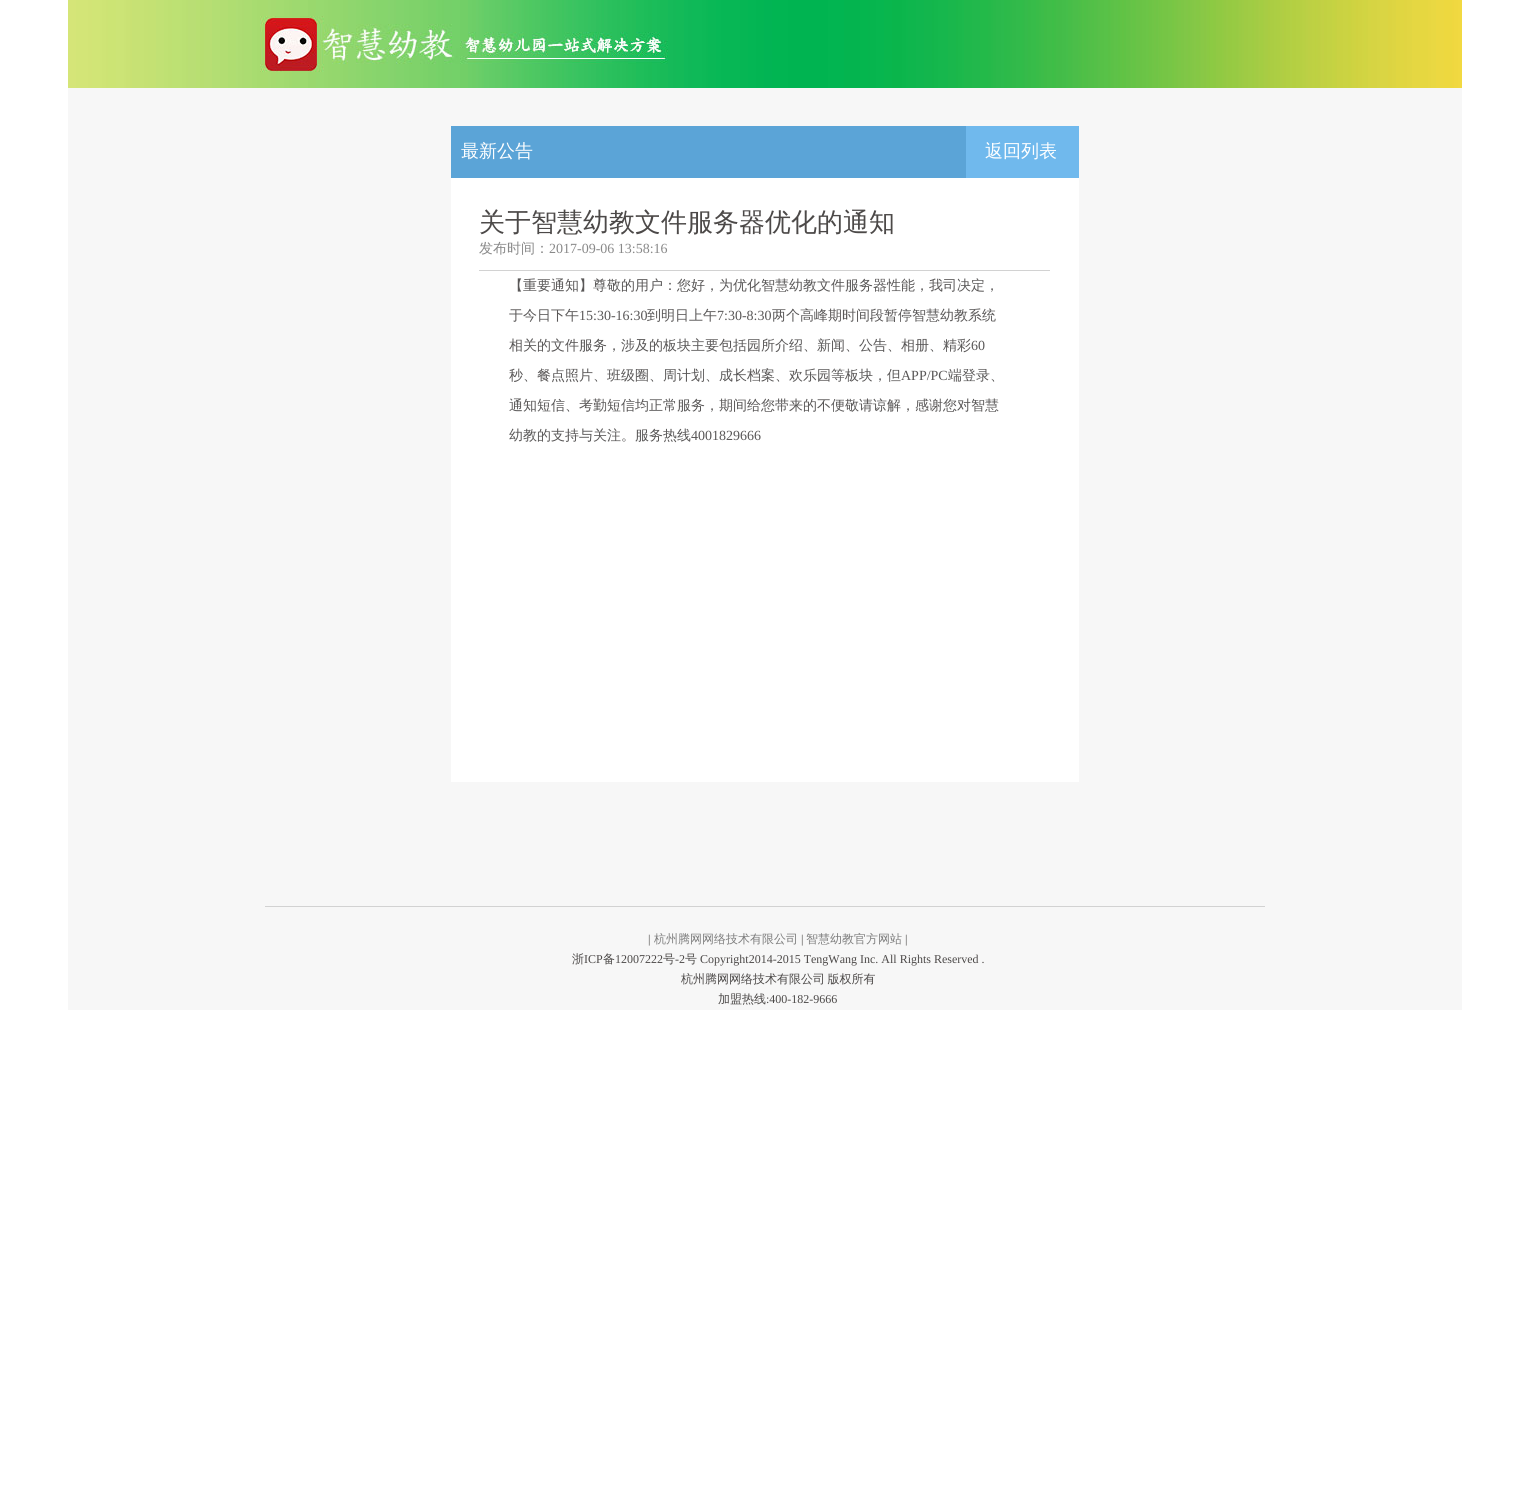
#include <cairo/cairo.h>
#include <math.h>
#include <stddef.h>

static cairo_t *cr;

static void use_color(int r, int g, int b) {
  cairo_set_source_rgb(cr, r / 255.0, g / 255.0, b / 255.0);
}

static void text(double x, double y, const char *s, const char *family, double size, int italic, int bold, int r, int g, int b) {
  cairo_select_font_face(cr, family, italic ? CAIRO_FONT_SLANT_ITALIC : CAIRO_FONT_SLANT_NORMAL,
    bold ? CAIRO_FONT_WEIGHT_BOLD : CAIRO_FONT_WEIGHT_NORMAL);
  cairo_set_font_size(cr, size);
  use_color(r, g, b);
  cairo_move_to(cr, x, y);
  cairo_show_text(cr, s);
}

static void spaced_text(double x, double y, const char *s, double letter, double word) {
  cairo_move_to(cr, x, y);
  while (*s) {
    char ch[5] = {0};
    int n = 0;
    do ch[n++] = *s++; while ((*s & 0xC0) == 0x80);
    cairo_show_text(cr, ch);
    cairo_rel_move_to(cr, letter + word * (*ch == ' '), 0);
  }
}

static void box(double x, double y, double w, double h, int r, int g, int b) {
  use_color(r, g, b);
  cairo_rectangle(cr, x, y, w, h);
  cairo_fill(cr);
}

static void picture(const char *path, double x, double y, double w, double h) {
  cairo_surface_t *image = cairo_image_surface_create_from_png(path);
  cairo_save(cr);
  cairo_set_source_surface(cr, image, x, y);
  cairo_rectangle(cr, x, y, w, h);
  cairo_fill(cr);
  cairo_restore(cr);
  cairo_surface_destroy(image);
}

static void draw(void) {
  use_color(255, 255, 255);
  cairo_paint(cr);
  picture("img_01.png", 68, 0, 1394, 88);
  box(68, 88, 1394, 922, 247, 247, 247);
  box(265, 906, 1000, 1, 210, 210, 210);
  box(451, 178, 628, 604, 255, 255, 255);
  box(451, 126, 515, 52, 91, 164, 215);
  box(966, 126, 113, 52, 112, 185, 237);
  box(479, 270, 571, 1, 210, 210, 210);
  text(461, 157, "最新公告", "WenQuanYi Zen Hei Medium", 18, 0, 0, 255, 255, 255);
  text(985, 157, "返回列表", "WenQuanYi Zen Hei Medium", 18, 0, 0, 255, 255, 255);
  text(479, 231, "关于智慧幼教文件服务器优化的通知", "WenQuanYi Zen Hei Medium", 26, 0, 0, 76, 73, 72);
  text(479, 253, "发布时间：", "WenQuanYi Zen Hei Medium", 14, 0, 0, 137, 137, 137);
  text(549, 253, "2017-09-06 13:58:16", "Liberation Serif", 14, 0, 0, 137, 137, 137);
  text(509, 290, "【重要通知】尊敬的用户：您好，为优化智慧幼教文件服务器性能，我司决定，", "WenQuanYi Zen Hei Medium", 14, 0, 0, 89, 87, 87);
  text(509, 320, "于今日下午", "WenQuanYi Zen Hei Medium", 14, 0, 0, 89, 87, 87);
  text(579, 320, "15:30-16:30", "Liberation Serif", 14, 0, 0, 89, 87, 87);
  text(647, 320, "到明日上午", "WenQuanYi Zen Hei Medium", 14, 0, 0, 89, 87, 87);
  text(717, 320, "7:30-8:30", "Liberation Serif", 14, 0, 0, 89, 87, 87);
  text(772, 320, "两个高峰期时间段暂停智慧幼教系统", "WenQuanYi Zen Hei Medium", 14, 0, 0, 89, 87, 87);
  text(509, 350, "相关的文件服务，涉及的板块主要包括园所介绍、新闻、公告、相册、精彩", "WenQuanYi Zen Hei Medium", 14, 0, 0, 89, 87, 87);
  text(971, 350, "60", "Liberation Serif", 14, 0, 0, 89, 87, 87);
  text(509, 380, "秒、餐点照片、班级圈、周计划、成长档案、欢乐园等板块，但", "WenQuanYi Zen Hei Medium", 14, 0, 0, 89, 87, 87);
  text(901, 380, "APP/PC", "Liberation Serif", 14, 0, 0, 89, 87, 87);
  text(948, 380, "端登录、", "WenQuanYi Zen Hei Medium", 14, 0, 0, 89, 87, 87);
  text(509, 410, "通知短信、考勤短信均正常服务，期间给您带来的不便敬请谅解，感谢您对智慧", "WenQuanYi Zen Hei Medium", 14, 0, 0, 89, 87, 87);
  text(509, 440, "幼教的支持与关注。服务热线", "WenQuanYi Zen Hei Medium", 14, 0, 0, 89, 87, 87);
  text(691, 440, "4001829666", "Liberation Serif", 14, 0, 0, 89, 87, 87);
  text(648, 943, "|", "Liberation Serif", 12, 0, 0, 76, 73, 72);
  text(654, 943, "杭州腾网网络技术有限公司", "WenQuanYi Zen Hei Medium", 12, 0, 0, 125, 125, 125);
  text(801, 943, "|", "Liberation Serif", 12, 0, 0, 76, 73, 72);
  text(806, 943, "智慧幼教官方网站", "WenQuanYi Zen Hei Medium", 12, 0, 0, 125, 125, 125);
  text(905, 943, "|", "Liberation Serif", 12, 0, 0, 76, 73, 72);
  text(572, 963, "浙", "WenQuanYi Zen Hei Medium", 12, 0, 0, 76, 73, 72);
  text(584, 963, "ICP", "Liberation Serif", 12, 0, 0, 76, 73, 72);
  text(603, 963, "备", "WenQuanYi Zen Hei Medium", 12, 0, 0, 76, 73, 72);
  text(615, 963, "12007222", "Liberation Serif", 12, 0, 0, 76, 73, 72);
  text(663, 963, "号", "WenQuanYi Zen Hei Medium", 12, 0, 0, 76, 73, 72);
  text(675, 963, "-2", "Liberation Serif", 12, 0, 0, 76, 73, 72);
  text(685, 963, "号", "WenQuanYi Zen Hei Medium", 12, 0, 0, 76, 73, 72);
  text(700, 963, "Copyright2014-2015 TengWang Inc. All Rights Reserved .", "Liberation Serif", 12, 0, 0, 76, 73, 72);
  cairo_select_font_face(cr, "WenQuanYi Zen Hei Medium", CAIRO_FONT_SLANT_NORMAL, CAIRO_FONT_WEIGHT_NORMAL);
  spaced_text(681, 983, "杭州腾网网络技术有限公司 版权所有", 0, -1);
  text(718, 1003, "加盟热线", "WenQuanYi Zen Hei Medium", 12, 0, 0, 76, 73, 72);
  text(766, 1003, ":400-182-9666", "Liberation Serif", 12, 0, 0, 76, 73, 72);
}

int main(void) {
  cairo_surface_t *surface = cairo_image_surface_create(CAIRO_FORMAT_RGB24, 1529, 1506);
  cr = cairo_create(surface);
  cairo_font_options_t *options = cairo_font_options_create();
  cairo_font_options_set_hint_metrics(options, CAIRO_HINT_METRICS_OFF);
  cairo_font_options_set_hint_style(options, CAIRO_HINT_STYLE_NONE);
  cairo_set_font_options(cr, options);
  cairo_set_miter_limit(cr, 4);
  draw();
  cairo_surface_write_to_png(surface, "out.png");
  cairo_font_options_destroy(options);
  cairo_destroy(cr);
  cairo_surface_destroy(surface);
  return 0;
}
